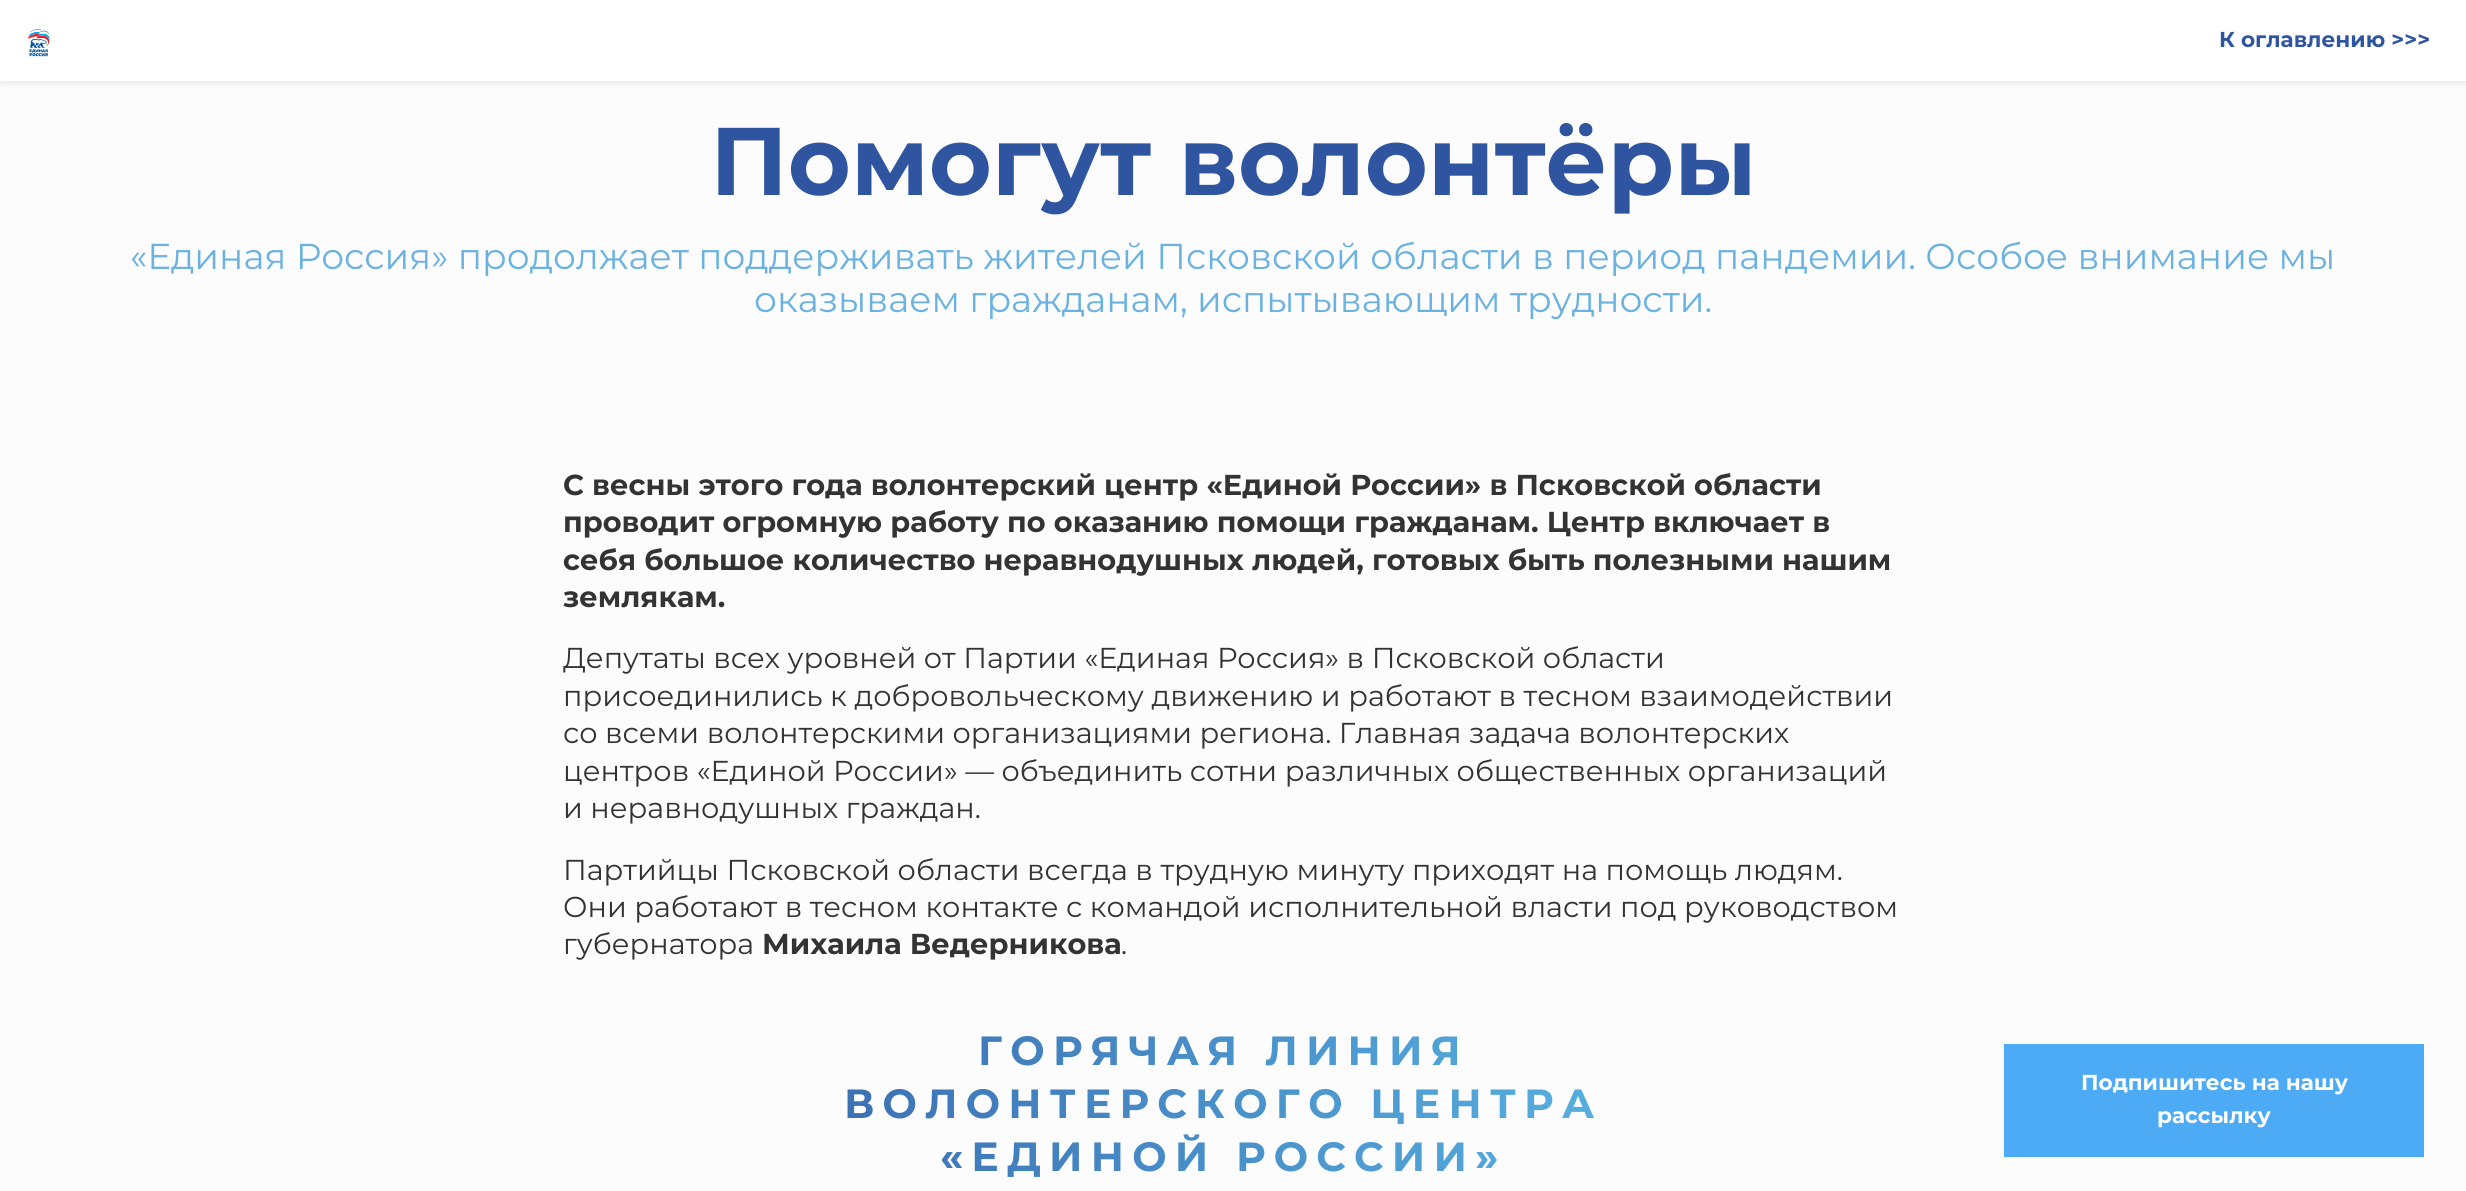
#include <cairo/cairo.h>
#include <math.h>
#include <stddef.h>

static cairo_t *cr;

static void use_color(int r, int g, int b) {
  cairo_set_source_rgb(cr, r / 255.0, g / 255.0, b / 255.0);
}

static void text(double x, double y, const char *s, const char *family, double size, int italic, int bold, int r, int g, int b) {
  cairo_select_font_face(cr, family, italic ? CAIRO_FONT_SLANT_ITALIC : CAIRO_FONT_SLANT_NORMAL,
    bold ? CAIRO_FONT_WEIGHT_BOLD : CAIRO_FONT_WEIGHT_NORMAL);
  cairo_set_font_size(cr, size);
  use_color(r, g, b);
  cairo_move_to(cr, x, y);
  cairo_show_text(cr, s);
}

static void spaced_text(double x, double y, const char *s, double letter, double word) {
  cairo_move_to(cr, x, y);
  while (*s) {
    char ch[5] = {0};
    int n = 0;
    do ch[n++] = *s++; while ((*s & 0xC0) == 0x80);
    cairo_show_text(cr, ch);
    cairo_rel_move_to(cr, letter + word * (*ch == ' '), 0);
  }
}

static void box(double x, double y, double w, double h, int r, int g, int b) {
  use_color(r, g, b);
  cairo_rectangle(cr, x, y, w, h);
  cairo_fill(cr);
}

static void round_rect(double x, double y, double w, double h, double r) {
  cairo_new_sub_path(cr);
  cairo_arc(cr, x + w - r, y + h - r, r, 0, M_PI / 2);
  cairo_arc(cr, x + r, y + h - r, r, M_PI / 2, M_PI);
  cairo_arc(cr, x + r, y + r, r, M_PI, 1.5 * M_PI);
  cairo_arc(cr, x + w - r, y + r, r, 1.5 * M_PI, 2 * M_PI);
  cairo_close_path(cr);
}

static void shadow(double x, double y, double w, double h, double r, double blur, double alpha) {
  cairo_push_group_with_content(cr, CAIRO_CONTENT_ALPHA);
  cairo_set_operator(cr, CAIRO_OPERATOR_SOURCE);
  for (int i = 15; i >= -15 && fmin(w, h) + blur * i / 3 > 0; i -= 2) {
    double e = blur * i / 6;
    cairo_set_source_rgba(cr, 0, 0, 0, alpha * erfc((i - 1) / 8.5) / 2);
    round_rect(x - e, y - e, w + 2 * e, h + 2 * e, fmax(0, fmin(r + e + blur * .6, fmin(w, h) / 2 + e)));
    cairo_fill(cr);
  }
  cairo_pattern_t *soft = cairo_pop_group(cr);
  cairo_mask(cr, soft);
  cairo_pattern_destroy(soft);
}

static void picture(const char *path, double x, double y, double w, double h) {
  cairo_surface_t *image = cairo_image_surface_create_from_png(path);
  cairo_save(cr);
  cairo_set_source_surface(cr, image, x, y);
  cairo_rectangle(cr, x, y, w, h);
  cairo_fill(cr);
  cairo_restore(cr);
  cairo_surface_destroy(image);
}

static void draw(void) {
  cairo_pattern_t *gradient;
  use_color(252, 252, 252);
  cairo_paint(cr);
  use_color(0, 0, 0);
  shadow(0, 3, 2466, 81, 0, 3, 0.07);
  box(0, 0, 2466, 81, 255, 255, 255);
  picture("img_01.png", 28, 28, 22, 29);
  box(2004, 1044, 420, 113, 77, 170, 245);
  text(2219, 47, "К оглавлению >>>", "Montserrat", 21.6, 0, 1, 48, 85, 160);
  text(710, 195, "Помогут волонтёры", "Montserrat", 96, 0, 1, 48, 85, 160);
  text(130, 269, "«Единая Россия» продолжает поддерживать жителей Псковской области в период пандемии. Особое внимание мы", "Montserrat", 36, 0, 0, 107, 178, 225);
  text(754, 312, "оказываем гражданам, испытывающим трудности.", "Montserrat", 36, 0, 0, 107, 178, 225);
  text(563, 495, "С весны этого года волонтерский центр «Единой России» в Псковской области", "Montserrat", 28.8, 0, 1, 51, 51, 51);
  text(563, 532, "проводит огромную работу по оказанию помощи гражданам. Центр включает в", "Montserrat", 28.8, 0, 1, 51, 51, 51);
  text(563, 570, "себя большое количество неравнодушных людей, готовых быть полезными нашим", "Montserrat", 28.8, 0, 1, 51, 51, 51);
  text(563, 607, "землякам.", "Montserrat", 28.8, 0, 1, 51, 51, 51);
  text(563, 668, "Депутаты всех уровней от Партии «Единая Россия» в Псковской области", "Montserrat", 28.8, 0, 0, 51, 51, 51);
  text(563, 706, "присоединились к добровольческому движению и работают в тесном взаимодействии", "Montserrat", 28.8, 0, 0, 51, 51, 51);
  text(563, 743, "со всеми волонтерскими организациями региона. Главная задача волонтерских", "Montserrat", 28.8, 0, 0, 51, 51, 51);
  text(563, 781, "центров «Единой России» — объединить сотни различных общественных организаций", "Montserrat", 28.8, 0, 0, 51, 51, 51);
  text(563, 818, "и неравнодушных граждан.", "Montserrat", 28.8, 0, 0, 51, 51, 51);
  text(563, 880, "Партийцы Псковской области всегда в трудную минуту приходят на помощь людям.", "Montserrat", 28.8, 0, 0, 51, 51, 51);
  text(563, 917, "Они работают в тесном контакте с командой исполнительной власти под руководством", "Montserrat", 28.8, 0, 0, 51, 51, 51);
  text(563, 954, "губернатора", "Montserrat", 28.8, 0, 0, 51, 51, 51);
  text(762, 954, "Михаила Ведерникова", "Montserrat", 28.8, 0, 1, 51, 51, 51);
  text(1121, 954, ".", "Montserrat", 28.8, 0, 0, 51, 51, 51);
  cairo_select_font_face(cr, "Montserrat", CAIRO_FONT_SLANT_NORMAL, CAIRO_FONT_WEIGHT_BOLD);
  cairo_set_font_size(cr, 40.75);
  gradient = cairo_pattern_create_linear(506, 1131, 1961, 1131);
  cairo_pattern_add_color_stop_rgba(gradient, 0, 0.192, 0.337, 0.631, 1);
  cairo_pattern_add_color_stop_rgba(gradient, 1, 0.384, 0.8, 0.953, 1);
  cairo_set_source(cr, gradient);
  cairo_pattern_destroy(gradient);
  spaced_text(978, 1065, "ГОРЯЧАЯ ЛИНИЯ", 8.2, 0);
  spaced_text(844, 1118, "ВОЛОНТЕРСКОГО ЦЕНТРА", 8.2, 0);
  spaced_text(940, 1171, "«ЕДИНОЙ РОССИИ»", 8.2, 0);
  text(2081, 1090, "Подпишитесь на нашу", "Montserrat", 21.6, 0, 1, 254, 254, 254);
  text(2157, 1123, "рассылку", "Montserrat", 21.6, 0, 1, 254, 254, 254);
}

int main(void) {
  cairo_surface_t *surface = cairo_image_surface_create(CAIRO_FORMAT_RGB24, 2466, 1191);
  cr = cairo_create(surface);
  cairo_font_options_t *options = cairo_font_options_create();
  cairo_font_options_set_hint_metrics(options, CAIRO_HINT_METRICS_OFF);
  cairo_font_options_set_hint_style(options, CAIRO_HINT_STYLE_NONE);
  cairo_set_font_options(cr, options);
  cairo_set_miter_limit(cr, 4);
  draw();
  cairo_surface_write_to_png(surface, "out.png");
  cairo_font_options_destroy(options);
  cairo_destroy(cr);
  cairo_surface_destroy(surface);
  return 0;
}
